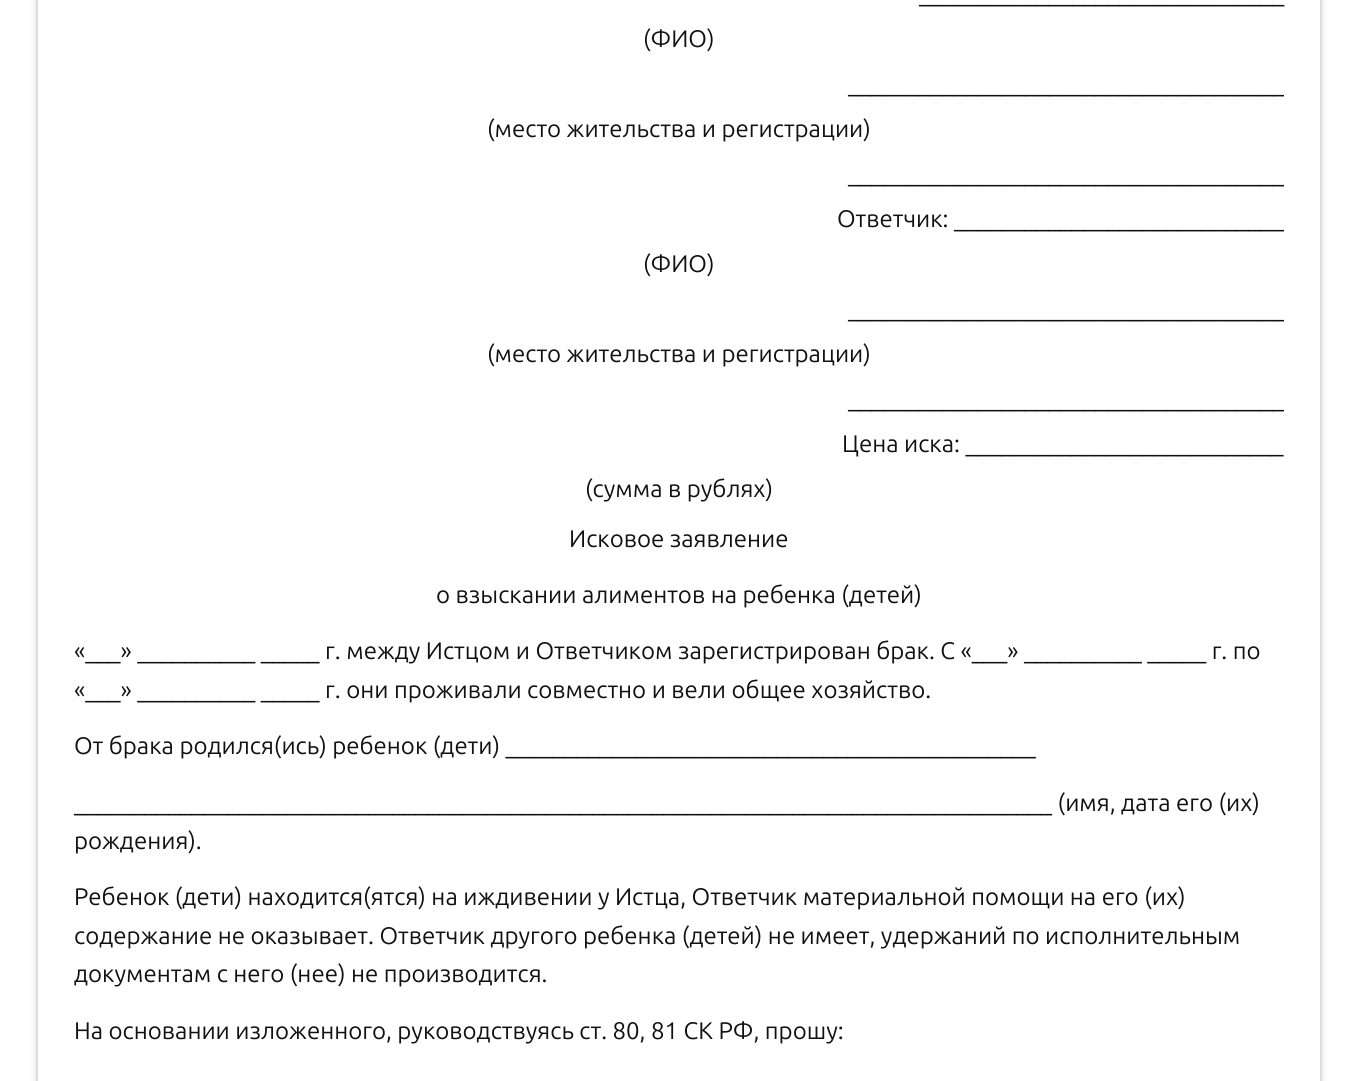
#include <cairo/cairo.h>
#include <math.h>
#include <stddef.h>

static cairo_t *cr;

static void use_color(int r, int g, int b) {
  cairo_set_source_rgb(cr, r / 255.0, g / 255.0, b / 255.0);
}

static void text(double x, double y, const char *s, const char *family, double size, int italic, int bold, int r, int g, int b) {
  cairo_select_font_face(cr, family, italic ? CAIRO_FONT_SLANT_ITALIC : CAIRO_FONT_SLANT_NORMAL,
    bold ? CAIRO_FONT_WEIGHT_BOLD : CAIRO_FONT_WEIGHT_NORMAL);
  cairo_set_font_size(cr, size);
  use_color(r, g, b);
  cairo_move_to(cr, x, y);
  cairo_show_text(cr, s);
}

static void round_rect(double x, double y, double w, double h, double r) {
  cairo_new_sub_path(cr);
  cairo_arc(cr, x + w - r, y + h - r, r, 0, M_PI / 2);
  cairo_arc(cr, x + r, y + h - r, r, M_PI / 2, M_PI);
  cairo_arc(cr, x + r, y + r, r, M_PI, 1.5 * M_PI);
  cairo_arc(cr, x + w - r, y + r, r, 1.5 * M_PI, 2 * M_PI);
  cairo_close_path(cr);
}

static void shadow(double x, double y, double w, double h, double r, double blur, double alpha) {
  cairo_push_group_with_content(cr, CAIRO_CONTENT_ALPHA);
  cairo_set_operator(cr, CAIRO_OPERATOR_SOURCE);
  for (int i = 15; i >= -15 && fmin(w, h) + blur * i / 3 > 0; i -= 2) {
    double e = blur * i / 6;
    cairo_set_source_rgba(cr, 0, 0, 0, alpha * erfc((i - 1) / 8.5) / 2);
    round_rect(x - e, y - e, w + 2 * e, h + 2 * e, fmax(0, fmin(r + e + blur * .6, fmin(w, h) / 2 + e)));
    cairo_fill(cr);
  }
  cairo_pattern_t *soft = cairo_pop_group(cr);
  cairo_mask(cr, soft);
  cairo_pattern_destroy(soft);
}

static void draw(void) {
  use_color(255, 255, 255);
  cairo_paint(cr);
  use_color(221, 221, 221);
  shadow(36, -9, 1286, 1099, 0, 3, 1);
  use_color(255, 255, 255);
  cairo_rectangle(cr, 37, -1, 1284, 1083);
  cairo_fill_preserve(cr);
  use_color(221, 221, 221);
  cairo_stroke(cr);
  text(919, 2, "_______________________________", "Ubuntu", 24, 0, 0, 17, 17, 17);
  text(643, 47, "(ФИО)", "Ubuntu", 24, 0, 0, 17, 17, 17);
  text(848, 92, "_____________________________________", "Ubuntu", 24, 0, 0, 17, 17, 17);
  text(487, 137, "(место жительства и регистрации)", "Ubuntu", 24, 0, 0, 17, 17, 17);
  text(848, 182, "_____________________________________", "Ubuntu", 24, 0, 0, 17, 17, 17);
  text(837, 227, "Ответчик: ____________________________", "Ubuntu", 24, 0, 0, 17, 17, 17);
  text(643, 272, "(ФИО)", "Ubuntu", 24, 0, 0, 17, 17, 17);
  text(848, 317, "_____________________________________", "Ubuntu", 24, 0, 0, 17, 17, 17);
  text(487, 362, "(место жительства и регистрации)", "Ubuntu", 24, 0, 0, 17, 17, 17);
  text(848, 407, "_____________________________________", "Ubuntu", 24, 0, 0, 17, 17, 17);
  text(842, 452, "Цена иска: ___________________________", "Ubuntu", 24, 0, 0, 17, 17, 17);
  text(585, 497, "(сумма в рублях)", "Ubuntu", 24, 0, 0, 17, 17, 17);
  text(569, 547, "Исковое заявление", "Ubuntu", 24, 0, 0, 17, 17, 17);
  text(436, 603, "о взыскании алиментов на ребенка (детей)", "Ubuntu", 24, 0, 0, 17, 17, 17);
  text(74, 659, "«___» __________ _____ г. между Истцом и Ответчиком зарегистрирован брак. С «___» __________ _____ г. по", "Ubuntu", 24, 0, 0, 17, 17, 17);
  text(74, 698, "«___» __________ _____ г. они проживали совместно и вели общее хозяйство.", "Ubuntu", 24, 0, 0, 17, 17, 17);
  text(74, 754, "От брака родился(ись) ребенок (дети) _____________________________________________", "Ubuntu", 24, 0, 0, 17, 17, 17);
  text(74, 811, "___________________________________________________________________________________ (имя, дата его (их)", "Ubuntu", 24, 0, 0, 17, 17, 17);
  text(74, 849, "рождения).", "Ubuntu", 24, 0, 0, 17, 17, 17);
  text(74, 905, "Ребенок (дети) находится(ятся) на иждивении у Истца, Ответчик материальной помощи на его (их)", "Ubuntu", 24, 0, 0, 17, 17, 17);
  text(74, 944, "содержание не оказывает. Ответчик другого ребенка (детей) не имеет, удержаний по исполнительным", "Ubuntu", 24, 0, 0, 17, 17, 17);
  text(74, 982, "документам с него (нее) не производится.", "Ubuntu", 24, 0, 0, 17, 17, 17);
  text(74, 1039, "На основании изложенного, руководствуясь ст. 80, 81 СК РФ, прошу:", "Ubuntu", 24, 0, 0, 17, 17, 17);
}

int main(void) {
  cairo_surface_t *surface = cairo_image_surface_create(CAIRO_FORMAT_RGB24, 1357, 1081);
  cr = cairo_create(surface);
  cairo_font_options_t *options = cairo_font_options_create();
  cairo_font_options_set_hint_metrics(options, CAIRO_HINT_METRICS_OFF);
  cairo_font_options_set_hint_style(options, CAIRO_HINT_STYLE_NONE);
  cairo_set_font_options(cr, options);
  cairo_set_miter_limit(cr, 4);
  draw();
  cairo_surface_write_to_png(surface, "out.png");
  cairo_font_options_destroy(options);
  cairo_destroy(cr);
  cairo_surface_destroy(surface);
  return 0;
}
